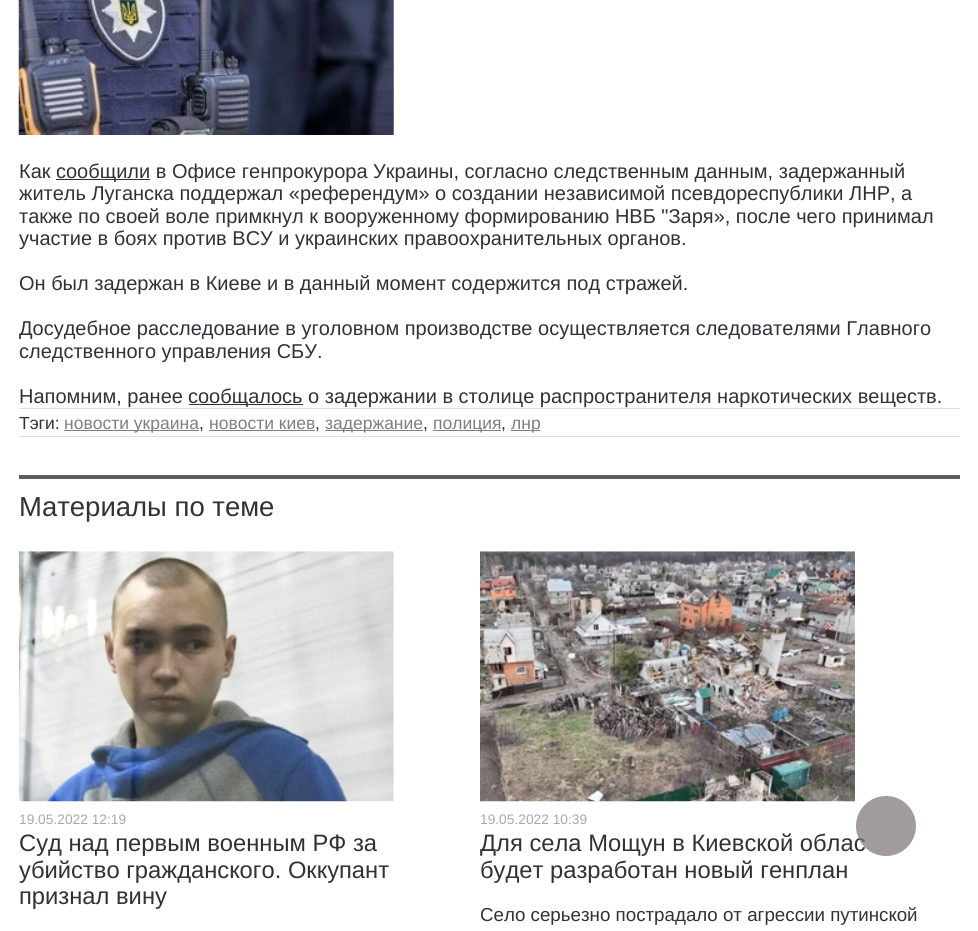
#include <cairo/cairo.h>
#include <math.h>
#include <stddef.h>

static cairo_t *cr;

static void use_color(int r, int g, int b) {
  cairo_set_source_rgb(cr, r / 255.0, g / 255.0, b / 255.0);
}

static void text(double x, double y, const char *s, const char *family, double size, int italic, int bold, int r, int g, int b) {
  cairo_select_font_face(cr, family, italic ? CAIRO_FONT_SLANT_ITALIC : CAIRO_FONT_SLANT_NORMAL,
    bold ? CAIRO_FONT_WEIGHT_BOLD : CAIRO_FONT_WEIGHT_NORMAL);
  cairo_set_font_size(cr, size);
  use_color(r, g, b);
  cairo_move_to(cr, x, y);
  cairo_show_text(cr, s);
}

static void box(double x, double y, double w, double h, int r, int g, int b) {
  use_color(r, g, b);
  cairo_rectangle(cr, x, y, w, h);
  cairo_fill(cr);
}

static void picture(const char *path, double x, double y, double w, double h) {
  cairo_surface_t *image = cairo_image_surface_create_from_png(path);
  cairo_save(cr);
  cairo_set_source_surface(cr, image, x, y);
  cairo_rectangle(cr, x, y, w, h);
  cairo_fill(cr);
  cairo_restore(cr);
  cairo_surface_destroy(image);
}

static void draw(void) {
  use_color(255, 255, 255);
  cairo_paint(cr);
  picture("img_01.png", 18, 0, 376, 135);
  box(56, 179, 94, 1, 47, 50, 56);
  box(189, 404, 114, 1, 47, 50, 56);
  box(19, 408, 941, 1, 222, 222, 222);
  box(19, 436, 941, 1, 222, 222, 222);
  box(64, 430, 135, 1, 126, 126, 126);
  box(209, 430, 106, 1, 126, 126, 126);
  box(325, 430, 98, 1, 126, 126, 126);
  box(433, 430, 68, 1, 126, 126, 126);
  box(511, 430, 29, 1, 126, 126, 126);
  box(19, 475, 941, 4, 89, 92, 97);
  picture("img_02.png", 18, 551, 376, 251);
  picture("img_03.png", 480, 551, 375, 251);
  text(19, 178, "Как", "Liberation Sans", 20, 0, 0, 47, 50, 56);
  text(56, 178, "сообщили в Офисе генпрокурора Украины, согласно следственным данным, задержанный", "Liberation Sans", 20, 0, 0, 47, 50, 56);
  text(19, 200, "житель Луганска поддержал «референдум» о создании независимой псевдореспублики ЛНР, а", "Liberation Sans", 20, 0, 0, 47, 50, 56);
  text(19, 223, "также по своей воле примкнул к вооруженному формированию НВБ \"Заря», после чего принимал", "Liberation Sans", 20, 0, 0, 47, 50, 56);
  text(19, 245, "участие в боях против ВСУ и украинских правоохранительных органов.", "Liberation Sans", 20, 0, 0, 47, 50, 56);
  text(19, 290, "Он был задержан в Киеве и в данный момент содержится под стражей.", "Liberation Sans", 20, 0, 0, 47, 50, 56);
  text(19, 335, "Досудебное расследование в уголовном производстве осуществляется следователями Главного", "Liberation Sans", 20, 0, 0, 47, 50, 56);
  text(19, 358, "следственного управления СБУ.", "Liberation Sans", 20, 0, 0, 47, 50, 56);
  text(19, 403, "Напомним, ранее", "Liberation Sans", 20, 0, 0, 47, 50, 56);
  text(188, 403, "сообщалось о задержании в столице распространителя наркотических веществ.", "Liberation Sans", 20, 0, 0, 47, 50, 56);
  text(19, 429, "Тэги:", "Liberation Sans", 17.5, 0, 0, 47, 50, 56);
  text(64, 429, "новости украина", "Liberation Sans", 17.5, 0, 0, 126, 126, 126);
  text(199, 429, ",", "Liberation Sans", 17.5, 0, 0, 47, 50, 56);
  text(209, 429, "новости киев", "Liberation Sans", 17.5, 0, 0, 126, 126, 126);
  text(315, 429, ",", "Liberation Sans", 17.5, 0, 0, 47, 50, 56);
  text(325, 429, "задержание", "Liberation Sans", 17.5, 0, 0, 126, 126, 126);
  text(423, 429, ",", "Liberation Sans", 17.5, 0, 0, 47, 50, 56);
  text(433, 429, "полиция", "Liberation Sans", 17.5, 0, 0, 126, 126, 126);
  text(501, 429, ",", "Liberation Sans", 17.5, 0, 0, 47, 50, 56);
  text(511, 429, "лнр", "Liberation Sans", 17.5, 0, 0, 126, 126, 126);
  text(19, 516, "Материалы по теме", "Liberation Sans", 27.5, 0, 0, 47, 50, 56);
  text(19, 824, "19.05.2022 12:19", "Liberation Sans", 13.75, 0, 0, 168, 168, 168);
  text(19, 851, "Суд над первым военным РФ за", "Liberation Sans", 23.75, 0, 0, 47, 50, 56);
  text(19, 878, "убийство гражданского. Оккупант", "Liberation Sans", 23.75, 0, 0, 47, 50, 56);
  text(19, 904, "признал вину", "Liberation Sans", 23.75, 0, 0, 47, 50, 56);
  text(480, 824, "19.05.2022 10:39", "Liberation Sans", 13.75, 0, 0, 168, 168, 168);
  text(480, 851, "Для села Мощун в Киевской облас", "Liberation Sans", 23.75, 0, 0, 47, 50, 56);
  text(480, 878, "будет разработан новый генплан", "Liberation Sans", 23.75, 0, 0, 47, 50, 56);
  text(480, 921, "Село серьезно пострадало от агрессии путинской", "Liberation Sans", 18.75, 0, 0, 47, 50, 56);
  cairo_set_source_rgba(cr, 0.482, 0.451, 0.451, 0.7);
  cairo_new_path(cr);
  cairo_arc(cr, 886, 826, 30, 0, 2 * M_PI);
  cairo_fill(cr);
}

int main(void) {
  cairo_surface_t *surface = cairo_image_surface_create(CAIRO_FORMAT_RGB24, 978, 931);
  cr = cairo_create(surface);
  cairo_font_options_t *options = cairo_font_options_create();
  cairo_font_options_set_hint_metrics(options, CAIRO_HINT_METRICS_OFF);
  cairo_font_options_set_hint_style(options, CAIRO_HINT_STYLE_NONE);
  cairo_set_font_options(cr, options);
  cairo_set_miter_limit(cr, 4);
  draw();
  cairo_surface_write_to_png(surface, "out.png");
  cairo_font_options_destroy(options);
  cairo_destroy(cr);
  cairo_surface_destroy(surface);
  return 0;
}
